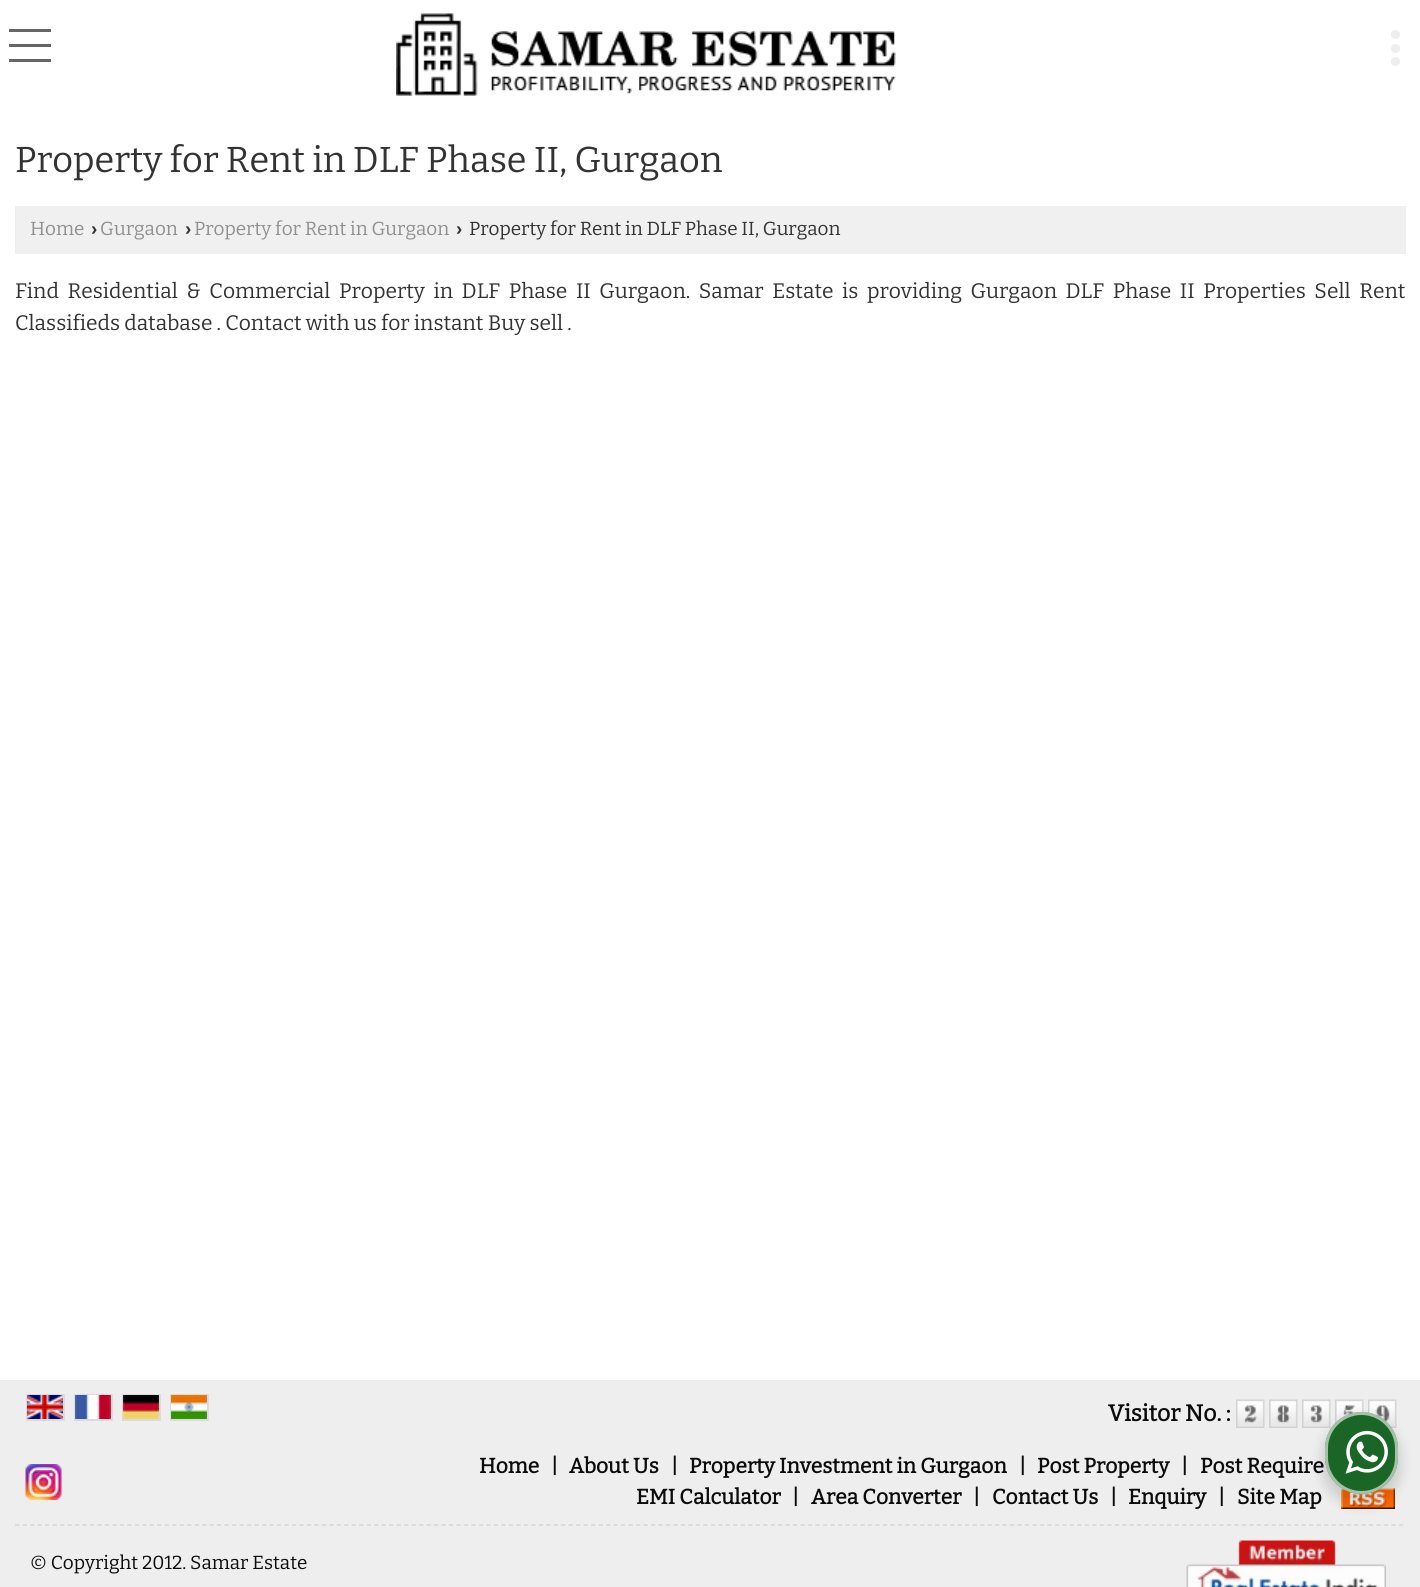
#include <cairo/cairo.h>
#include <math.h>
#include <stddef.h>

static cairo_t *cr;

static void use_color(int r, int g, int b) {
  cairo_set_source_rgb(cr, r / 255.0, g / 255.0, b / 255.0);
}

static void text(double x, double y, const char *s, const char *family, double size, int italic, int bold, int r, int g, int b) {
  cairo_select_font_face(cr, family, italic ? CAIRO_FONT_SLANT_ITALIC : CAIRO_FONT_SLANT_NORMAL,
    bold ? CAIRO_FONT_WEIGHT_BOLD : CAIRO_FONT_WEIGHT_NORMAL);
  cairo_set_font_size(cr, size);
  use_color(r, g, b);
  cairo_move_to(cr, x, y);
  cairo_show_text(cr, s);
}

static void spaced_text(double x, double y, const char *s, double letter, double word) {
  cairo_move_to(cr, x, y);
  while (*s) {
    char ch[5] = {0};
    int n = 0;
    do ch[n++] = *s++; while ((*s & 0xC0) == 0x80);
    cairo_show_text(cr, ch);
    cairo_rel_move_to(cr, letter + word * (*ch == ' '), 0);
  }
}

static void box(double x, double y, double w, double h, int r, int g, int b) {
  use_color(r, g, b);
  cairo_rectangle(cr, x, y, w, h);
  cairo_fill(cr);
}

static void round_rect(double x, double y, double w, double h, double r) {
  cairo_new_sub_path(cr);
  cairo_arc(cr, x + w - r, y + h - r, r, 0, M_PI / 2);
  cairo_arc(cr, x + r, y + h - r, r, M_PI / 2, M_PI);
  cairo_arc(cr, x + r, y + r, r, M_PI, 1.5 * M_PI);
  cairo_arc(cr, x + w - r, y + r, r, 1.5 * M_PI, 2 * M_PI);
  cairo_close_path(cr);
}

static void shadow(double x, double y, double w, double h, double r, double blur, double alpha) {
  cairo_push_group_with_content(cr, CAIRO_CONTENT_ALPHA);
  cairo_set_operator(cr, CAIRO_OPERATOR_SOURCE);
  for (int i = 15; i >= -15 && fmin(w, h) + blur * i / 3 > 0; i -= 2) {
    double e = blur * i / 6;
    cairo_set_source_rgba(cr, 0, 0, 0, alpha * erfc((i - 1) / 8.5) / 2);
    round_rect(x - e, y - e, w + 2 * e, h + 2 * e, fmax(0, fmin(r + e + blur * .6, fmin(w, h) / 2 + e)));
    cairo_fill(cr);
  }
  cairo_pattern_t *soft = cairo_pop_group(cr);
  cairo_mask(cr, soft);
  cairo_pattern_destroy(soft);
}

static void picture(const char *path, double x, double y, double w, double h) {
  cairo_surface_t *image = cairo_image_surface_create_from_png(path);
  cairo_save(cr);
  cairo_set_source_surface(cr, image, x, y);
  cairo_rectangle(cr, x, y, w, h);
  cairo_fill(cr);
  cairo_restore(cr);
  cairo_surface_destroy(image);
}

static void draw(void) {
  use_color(255, 255, 255);
  cairo_paint(cr);
  picture("img_01.png", 396, 13, 500, 83);
  box(9, 44, 42, 3, 102, 102, 102);
  box(9, 29, 42, 3, 102, 102, 102);
  box(9, 59, 42, 3, 102, 102, 102);
  use_color(238, 238, 238);
  cairo_arc(cr, 1395.5, 48.5, 4.5, 0, 2 * M_PI);
  cairo_fill(cr);
  cairo_arc(cr, 1395.5, 34.5, 4.5, 0, 2 * M_PI);
  cairo_fill(cr);
  cairo_arc(cr, 1395.5, 61.5, 4.5, 0, 2 * M_PI);
  cairo_fill(cr);
  box(15, 206, 1391, 48, 240, 240, 240);
  box(0, 1380, 1420, 207, 238, 238, 238);
  cairo_rectangle(cr, 27, 1395, 37, 25);
  use_color(219, 219, 219);
  cairo_stroke(cr);
  cairo_rectangle(cr, 75, 1395, 37, 25);
  cairo_stroke(cr);
  cairo_rectangle(cr, 123, 1395, 37, 25);
  cairo_stroke(cr);
  cairo_rectangle(cr, 171, 1395, 37, 25);
  cairo_stroke(cr);
  picture("img_02.png", 27, 1395, 36, 24);
  picture("img_03.png", 75, 1395, 36, 24);
  picture("img_04.png", 123, 1395, 36, 24);
  picture("img_05.png", 171, 1395, 36, 24);
  picture("img_06.png", 1236, 1399, 29, 29);
  picture("img_07.png", 1269, 1399, 29, 29);
  picture("img_08.png", 1302, 1399, 29, 29);
  picture("img_09.png", 1335, 1399, 29, 25);
  picture("img_10.png", 1368, 1399, 29, 29);
  picture("img_11.png", 25, 1464, 37, 36);
  picture("img_12.png", 1341, 1488, 54, 21);
  cairo_new_path(cr);
  cairo_move_to(cr, 15, 1525);
  cairo_line_to(cr, 1405.5, 1525);
  use_color(214, 214, 214);
  cairo_set_line_width(cr, 1.5);
  cairo_set_dash(cr, (double[]){4.5, 2.98}, 2, 0);
  cairo_stroke(cr);
  picture("img_13.png", 1186, 1540, 200, 47);
  use_color(0, 0, 0);
  shadow(1322, 1418, 79, 88, 39.5, 6, 0.14);
  use_color(25, 102, 38);
  round_rect(1325, 1412, 73, 82, 36.5);
  cairo_fill(cr);
  round_rect(1326.5, 1413.5, 70, 79, 35);
  cairo_set_source_rgba(cr, 1, 1, 1, 0.6);
  cairo_set_line_width(cr, 3);
  cairo_set_dash(cr, NULL, 0, 0);
  cairo_stroke(cr);
  picture("img_14.png", 1345, 1430, 43, 44);
  text(15, 172, "Property for Rent in DLF Phase II, Gurgaon", "Bitter Thin", 36, 0, 0, 51, 51, 51);
  text(30, 235, "Home", "Bitter Thin", 18.9, 0, 0, 144, 144, 144);
  text(91, 235, "›", "Liberation Sans", 18.9, 0, 1, 51, 51, 51);
  text(100, 235, "Gurgaon", "Bitter Thin", 18.9, 0, 0, 144, 144, 144);
  text(185, 235, "›", "Liberation Sans", 18.9, 0, 1, 51, 51, 51);
  text(194, 235, "Property for Rent in Gurgaon", "Bitter Thin", 18.9, 0, 0, 144, 144, 144);
  text(456, 235, "›", "Liberation Sans", 18.9, 0, 1, 51, 51, 51);
  text(469, 235, "Property for Rent in DLF Phase II, Gurgaon", "Bitter Thin", 18.9, 0, 0, 51, 51, 51);
  cairo_set_font_size(cr, 21);
  spaced_text(15, 298, "Find Residential & Commercial Property in DLF Phase II Gurgaon. Samar Estate is", 0, 4.4);
  spaced_text(867, 298, "providing Gurgaon DLF Phase II Properties Sell Rent", 0, 4.4);
  text(15, 330, "Classifieds database . Contact with us for instant Buy sell .", "Bitter Thin", 21, 0, 0, 51, 51, 51);
  text(1108, 1421, "Visitor No. :", "Bitter", 23, 0, 1, 12, 12, 12);
  text(479, 1473, "Home", "Bitter", 21, 0, 1, 12, 12, 12);
  text(551, 1473, "|", "Bitter", 21, 0, 1, 12, 12, 12);
  text(569, 1473, "About Us", "Bitter", 21, 0, 1, 12, 12, 12);
  text(671, 1473, "|", "Bitter", 21, 0, 1, 12, 12, 12);
  text(689, 1473, "Property Investment in Gurgaon", "Bitter", 21, 0, 1, 12, 12, 12);
  text(1019, 1473, "|", "Bitter", 21, 0, 1, 12, 12, 12);
  text(1037, 1473, "Post Property", "Bitter", 21, 0, 1, 12, 12, 12);
  text(1181, 1473, "|", "Bitter", 21, 0, 1, 12, 12, 12);
  text(1200, 1473, "Post Require", "Bitter", 21, 0, 1, 12, 12, 12);
  text(636, 1504, "EMI Calculator", "Bitter", 21, 0, 1, 12, 12, 12);
  text(792, 1504, "|", "Bitter", 21, 0, 1, 12, 12, 12);
  text(811, 1504, "Area Converter", "Bitter", 21, 0, 1, 12, 12, 12);
  text(973, 1504, "|", "Bitter", 21, 0, 1, 12, 12, 12);
  text(992, 1504, "Contact Us", "Bitter", 21, 0, 1, 12, 12, 12);
  text(1110, 1504, "|", "Bitter", 21, 0, 1, 12, 12, 12);
  text(1128, 1504, "Enquiry", "Bitter", 21, 0, 1, 12, 12, 12);
  text(1218, 1504, "|", "Bitter", 21, 0, 1, 12, 12, 12);
  text(1237, 1504, "Site Map", "Bitter", 21, 0, 1, 12, 12, 12);
  text(30, 1569, "© Copyright 2012. Samar Estate", "Bitter Thin", 18.9, 0, 0, 12, 12, 12);
}

int main(void) {
  cairo_surface_t *surface = cairo_image_surface_create(CAIRO_FORMAT_RGB24, 1420, 1587);
  cr = cairo_create(surface);
  cairo_font_options_t *options = cairo_font_options_create();
  cairo_font_options_set_hint_metrics(options, CAIRO_HINT_METRICS_OFF);
  cairo_font_options_set_hint_style(options, CAIRO_HINT_STYLE_NONE);
  cairo_set_font_options(cr, options);
  cairo_set_miter_limit(cr, 4);
  draw();
  cairo_surface_write_to_png(surface, "out.png");
  cairo_font_options_destroy(options);
  cairo_destroy(cr);
  cairo_surface_destroy(surface);
  return 0;
}
